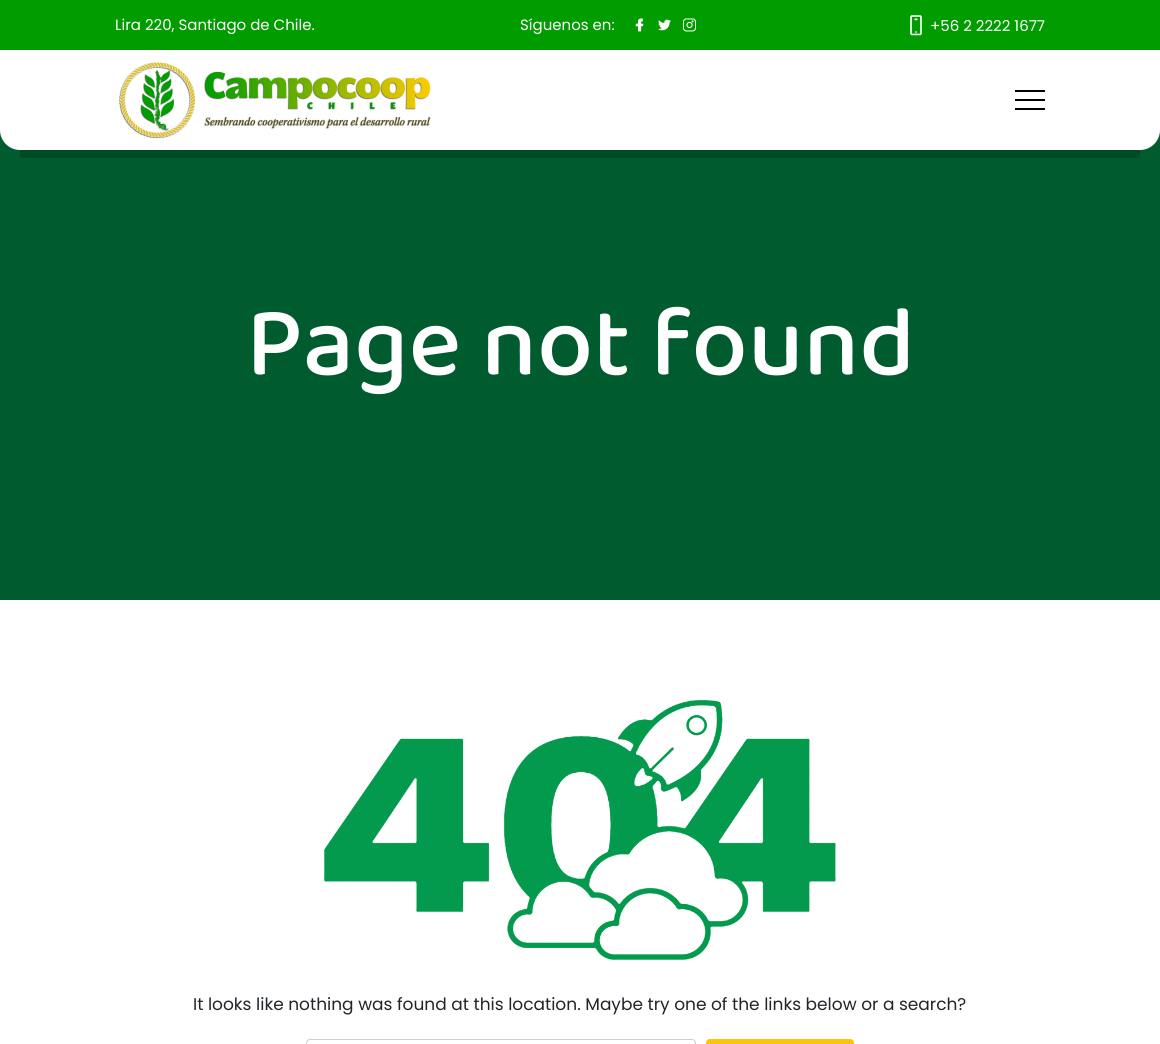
#include <cairo/cairo.h>
#include <math.h>
#include <stddef.h>

static cairo_t *cr;

static void use_color(int r, int g, int b) {
  cairo_set_source_rgb(cr, r / 255.0, g / 255.0, b / 255.0);
}

static void text(double x, double y, const char *s, const char *family, double size, int italic, int bold, int r, int g, int b) {
  cairo_select_font_face(cr, family, italic ? CAIRO_FONT_SLANT_ITALIC : CAIRO_FONT_SLANT_NORMAL,
    bold ? CAIRO_FONT_WEIGHT_BOLD : CAIRO_FONT_WEIGHT_NORMAL);
  cairo_set_font_size(cr, size);
  use_color(r, g, b);
  cairo_move_to(cr, x, y);
  cairo_show_text(cr, s);
}

static void box(double x, double y, double w, double h, int r, int g, int b) {
  use_color(r, g, b);
  cairo_rectangle(cr, x, y, w, h);
  cairo_fill(cr);
}

static void round_rect(double x, double y, double w, double h, double r) {
  cairo_new_sub_path(cr);
  cairo_arc(cr, x + w - r, y + h - r, r, 0, M_PI / 2);
  cairo_arc(cr, x + r, y + h - r, r, M_PI / 2, M_PI);
  cairo_arc(cr, x + r, y + r, r, M_PI, 1.5 * M_PI);
  cairo_arc(cr, x + w - r, y + r, r, 1.5 * M_PI, 2 * M_PI);
  cairo_close_path(cr);
}

static void picture(const char *path, double x, double y, double w, double h) {
  cairo_surface_t *image = cairo_image_surface_create_from_png(path);
  cairo_save(cr);
  cairo_set_source_surface(cr, image, x, y);
  cairo_rectangle(cr, x, y, w, h);
  cairo_fill(cr);
  cairo_restore(cr);
  cairo_surface_destroy(image);
}

static void draw(void) {
  use_color(255, 255, 255);
  cairo_paint(cr);
  box(0, 0, 1160, 50, 0, 156, 0);
  picture("img_01.png", 635, 18, 9, 14);
  picture("img_02.png", 658, 19, 13, 12);
  picture("img_03.png", 683, 18, 13, 14);
  picture("img_04.png", 910, 15, 12, 21);
  box(0, 130, 1160, 470, 0, 92, 47);
  use_color(255, 255, 255);
  cairo_new_path(cr);
  cairo_move_to(cr, 0, 50);
  cairo_line_to(cr, 1160, 50);
  cairo_line_to(cr, 1160, 130);
  cairo_curve_to(cr, 1160, 141, 1151, 150, 1140, 150);
  cairo_line_to(cr, 20, 150);
  cairo_curve_to(cr, 9, 150, 0, 141, 0, 130);
  cairo_close_path(cr);
  cairo_fill(cr);
  picture("img_05.png", 119, 62, 312, 77);
  box(1015, 90, 30, 2, 0, 0, 0);
  box(1015, 99, 30, 2, 0, 0, 0);
  box(1015, 108, 30, 2, 0, 0, 0);
  use_color(0, 74, 38);
  cairo_new_path(cr);
  cairo_move_to(cr, 20, 150);
  cairo_line_to(cr, 1140, 150);
  cairo_line_to(cr, 1140, 156);
  cairo_curve_to(cr, 1140, 157, 1139, 158, 1138, 158);
  cairo_line_to(cr, 22, 158);
  cairo_curve_to(cr, 21, 158, 20, 157, 20, 156);
  cairo_close_path(cr);
  cairo_fill(cr);
  picture("img_06.png", 324, 700, 512, 260);
  round_rect(306.5, 1039.5, 389, 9, 3.5);
  use_color(206, 206, 206);
  cairo_set_line_width(cr, 1);
  cairo_stroke(cr);
  use_color(251, 197, 11);
  round_rect(706, 1039, 148, 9, 4);
  cairo_fill(cr);
  text(115, 30, "Lira 220, Santiago de Chile.", "Poppins", 15, 0, 0, 255, 255, 255);
  text(520, 30, "Síguenos en:", "Poppins", 15, 0, 0, 255, 255, 255);
  text(930, 31, "+56 2 2222 1677", "Poppins", 15, 0, 0, 255, 255, 255);
  text(246, 374, "Page not found", "Baloo 2 Medium", 100, 0, 0, 255, 255, 255);
  text(193, 1010, "It looks like nothing was found at this location. Maybe try one of the links below or a search?", "Poppins", 17, 0, 0, 33, 37, 41);
}

int main(void) {
  cairo_surface_t *surface = cairo_image_surface_create(CAIRO_FORMAT_RGB24, 1160, 1044);
  cr = cairo_create(surface);
  cairo_font_options_t *options = cairo_font_options_create();
  cairo_font_options_set_hint_metrics(options, CAIRO_HINT_METRICS_OFF);
  cairo_font_options_set_hint_style(options, CAIRO_HINT_STYLE_NONE);
  cairo_set_font_options(cr, options);
  cairo_set_miter_limit(cr, 4);
  draw();
  cairo_surface_write_to_png(surface, "out.png");
  cairo_font_options_destroy(options);
  cairo_destroy(cr);
  cairo_surface_destroy(surface);
  return 0;
}
